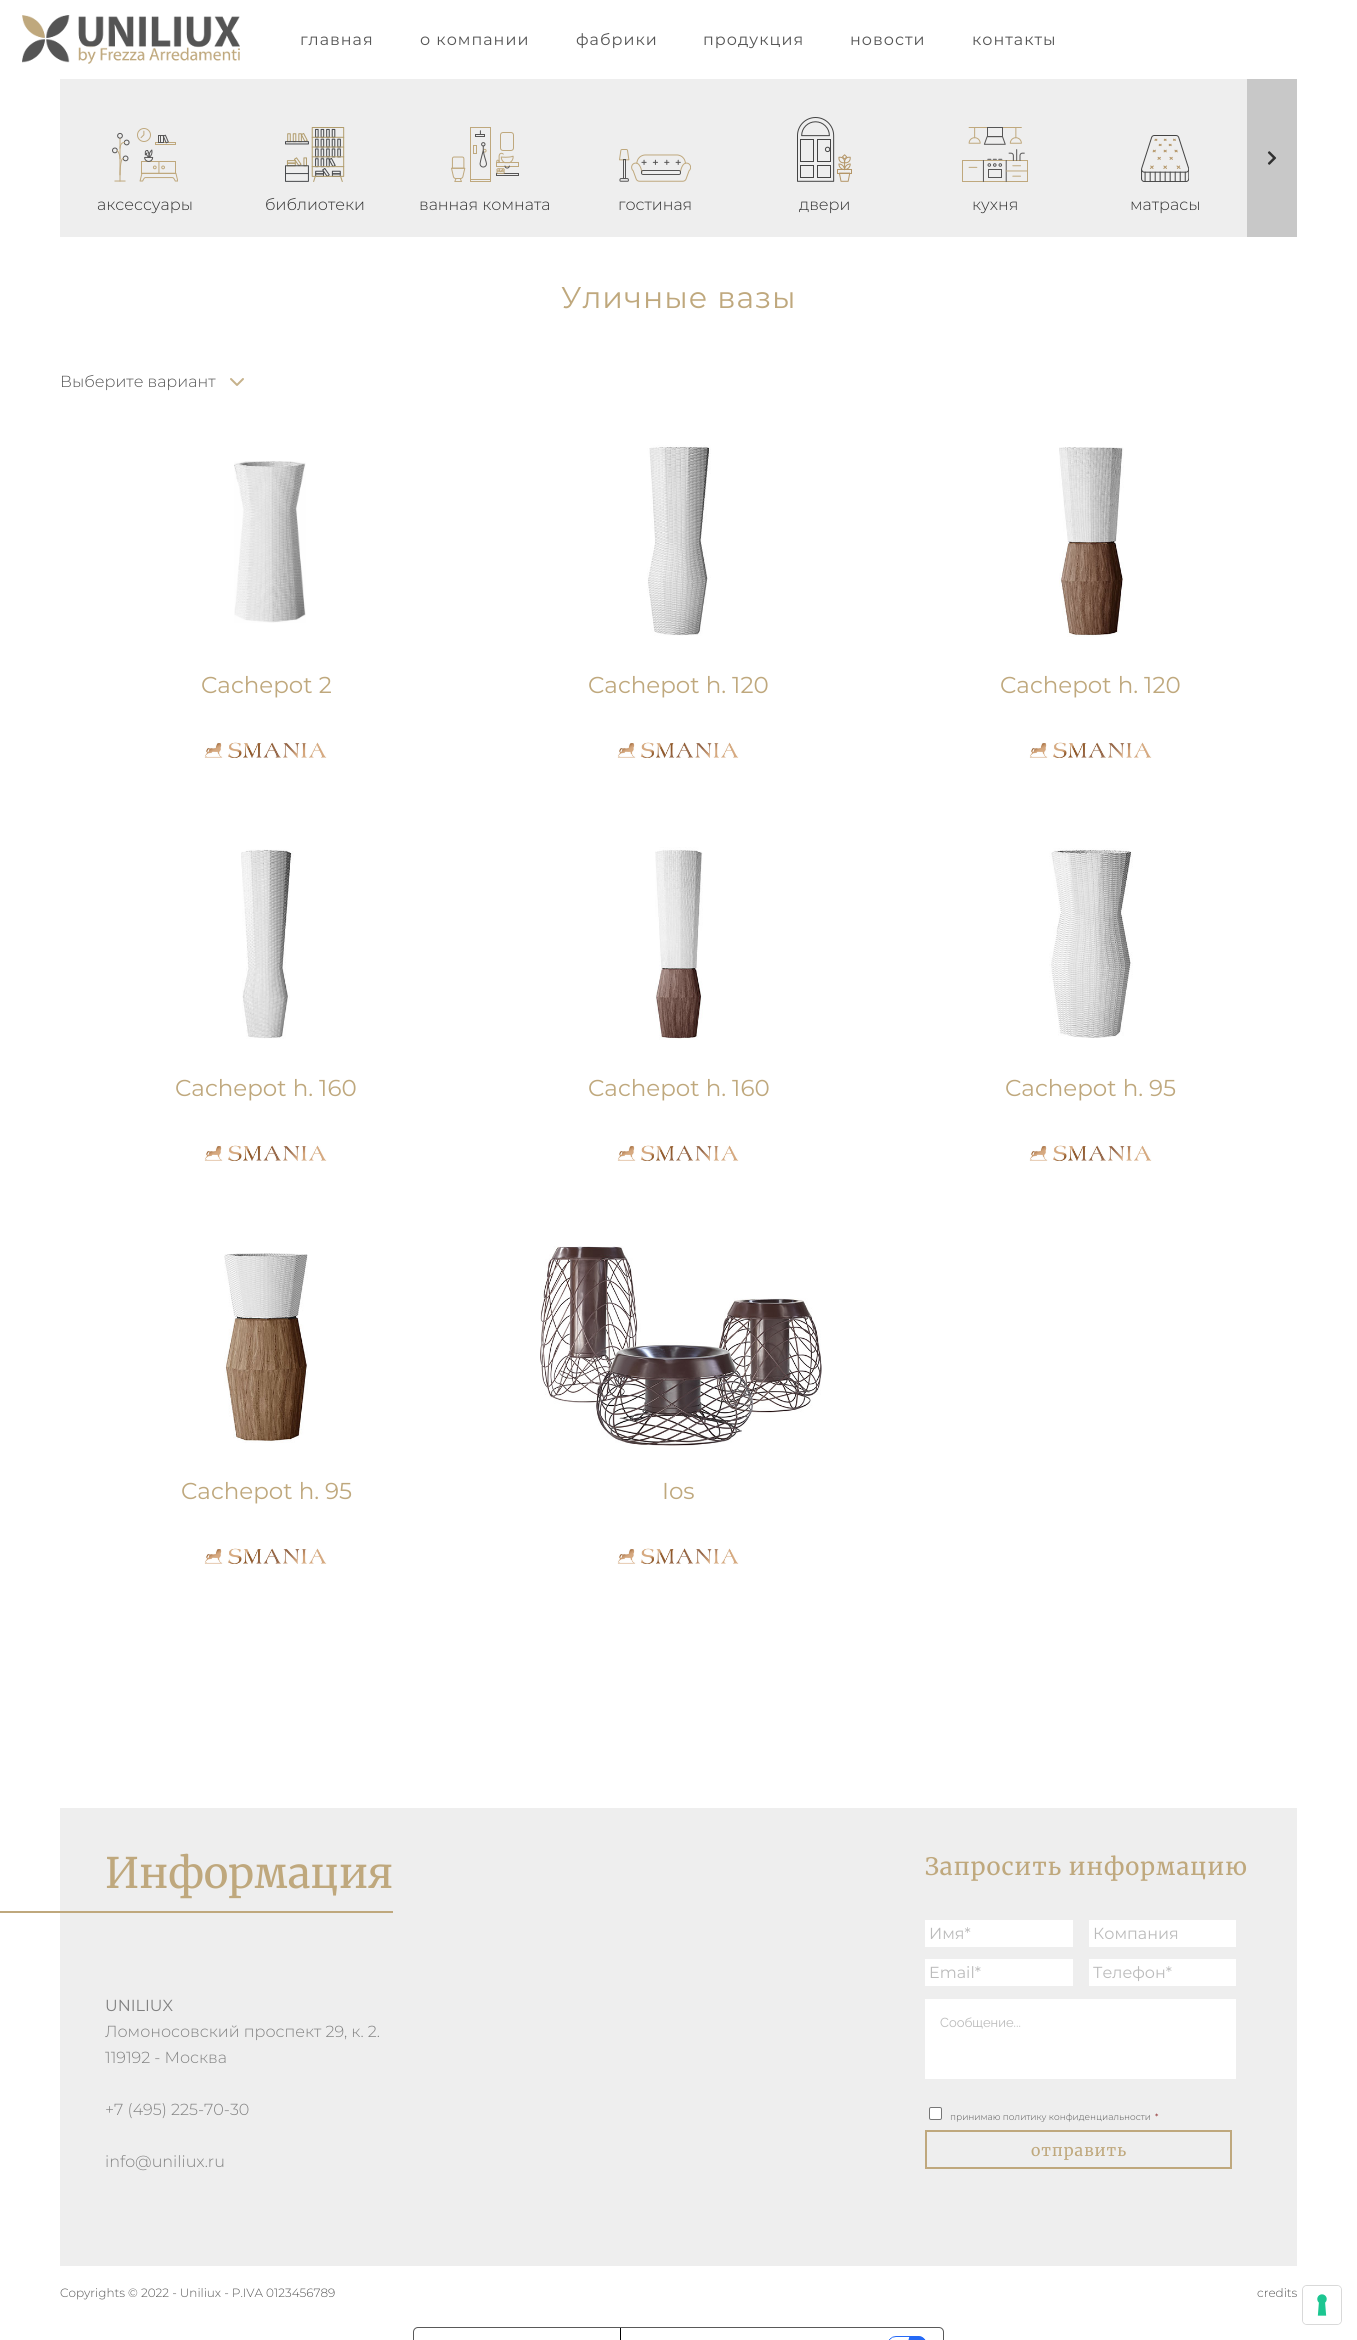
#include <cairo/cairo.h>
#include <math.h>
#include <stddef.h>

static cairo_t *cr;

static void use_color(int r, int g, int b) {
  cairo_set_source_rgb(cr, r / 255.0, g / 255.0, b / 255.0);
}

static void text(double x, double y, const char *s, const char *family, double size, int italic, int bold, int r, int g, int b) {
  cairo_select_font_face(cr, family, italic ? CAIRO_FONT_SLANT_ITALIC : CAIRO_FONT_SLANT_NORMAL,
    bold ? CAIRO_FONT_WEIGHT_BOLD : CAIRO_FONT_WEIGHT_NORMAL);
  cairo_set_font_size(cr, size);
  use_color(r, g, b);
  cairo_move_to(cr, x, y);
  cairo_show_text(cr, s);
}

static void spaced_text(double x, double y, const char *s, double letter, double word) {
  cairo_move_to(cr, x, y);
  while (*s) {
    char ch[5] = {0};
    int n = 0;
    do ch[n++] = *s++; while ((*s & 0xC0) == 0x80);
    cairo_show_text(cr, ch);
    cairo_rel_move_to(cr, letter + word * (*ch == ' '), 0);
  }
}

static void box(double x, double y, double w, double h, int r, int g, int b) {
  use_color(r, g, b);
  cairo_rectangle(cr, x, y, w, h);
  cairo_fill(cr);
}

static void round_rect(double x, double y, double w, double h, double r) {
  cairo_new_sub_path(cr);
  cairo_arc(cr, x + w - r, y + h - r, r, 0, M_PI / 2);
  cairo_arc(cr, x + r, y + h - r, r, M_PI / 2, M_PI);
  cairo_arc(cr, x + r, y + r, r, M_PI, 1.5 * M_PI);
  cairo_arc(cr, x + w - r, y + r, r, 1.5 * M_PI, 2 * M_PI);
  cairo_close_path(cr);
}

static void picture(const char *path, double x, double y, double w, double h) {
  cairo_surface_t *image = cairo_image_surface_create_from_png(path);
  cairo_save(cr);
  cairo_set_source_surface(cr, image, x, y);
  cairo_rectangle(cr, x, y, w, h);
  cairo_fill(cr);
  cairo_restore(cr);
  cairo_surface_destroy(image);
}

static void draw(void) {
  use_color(255, 255, 255);
  cairo_paint(cr);
  picture("img_01.png", 22, 15, 218, 49);
  box(60, 79, 1187, 158, 238, 238, 238);
  picture("img_02.png", 112, 128, 66, 54);
  picture("img_03.png", 285, 127, 60, 55);
  picture("img_04.png", 451, 127, 68, 55);
  picture("img_05.png", 619, 149, 72, 33);
  picture("img_06.png", 797, 117, 55, 65);
  picture("img_07.png", 962, 127, 66, 55);
  picture("img_08.png", 1141, 135, 48, 47);
  box(1247, 79, 50, 158, 200, 200, 200);
  picture("img_09.png", 1267, 151, 10, 14);
  picture("img_10.png", 230, 378, 14, 8);
  picture("img_11.png", 234, 461, 72, 162);
  picture("img_12.png", 204, 742, 123, 16);
  picture("img_13.png", 647, 445, 64, 191);
  picture("img_14.png", 617, 742, 122, 16);
  picture("img_15.png", 1059, 447, 65, 190);
  picture("img_12.png", 1029, 742, 123, 16);
  picture("img_16.png", 241, 849, 53, 190);
  picture("img_17.png", 204, 1145, 123, 16);
  picture("img_18.png", 655, 847, 48, 193);
  picture("img_19.png", 617, 1145, 122, 16);
  picture("img_20.png", 1049, 848, 84, 190);
  picture("img_17.png", 1029, 1145, 123, 16);
  picture("img_21.png", 224, 1253, 84, 190);
  picture("img_17.png", 204, 1548, 123, 16);
  picture("img_22.png", 540, 1246, 282, 200);
  picture("img_19.png", 617, 1548, 122, 16);
  box(60, 1808, 1237, 458, 238, 238, 238);
  box(0, 1911, 393, 2, 191, 168, 125);
  box(925, 1920, 148, 27, 255, 255, 255);
  box(1089, 1920, 147, 27, 255, 255, 255);
  box(925, 1959, 148, 27, 255, 255, 255);
  box(1089, 1959, 147, 27, 255, 255, 255);
  box(925, 1999, 311, 80, 255, 255, 255);
  round_rect(929.5, 2107.5, 12, 12, 1.5);
  cairo_fill_preserve(cr);
  use_color(118, 118, 118);
  cairo_set_line_width(cr, 1);
  cairo_stroke(cr);
  cairo_rectangle(cr, 926, 2131, 305, 37);
  use_color(191, 168, 125);
  cairo_set_line_width(cr, 2);
  cairo_stroke(cr);
  round_rect(1302.5, 2285.5, 39, 39, 4.5);
  use_color(217, 217, 217);
  cairo_set_line_width(cr, 1);
  cairo_stroke(cr);
  use_color(255, 255, 255);
  round_rect(1303, 2286, 38, 38, 4);
  cairo_fill(cr);
  picture("img_23.png", 1317, 2294, 10, 22);
  round_rect(413.5, 2327.5, 530, 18, 4.5);
  use_color(89, 89, 89);
  cairo_stroke(cr);
  box(620, 2328, 1, 12, 0, 0, 0);
  picture("img_24.png", 889, 2336, 37, 4);
  cairo_select_font_face(cr, "Montserrat", CAIRO_FONT_SLANT_NORMAL, CAIRO_FONT_WEIGHT_NORMAL);
  cairo_set_font_size(cr, 16);
  use_color(85, 85, 85);
  spaced_text(300, 45, "главная", 1, 0);
  spaced_text(420, 45, "о компании", 1, 0);
  spaced_text(576, 45, "фабрики", 1, 0);
  spaced_text(703, 45, "продукция", 1, 0);
  spaced_text(850, 45, "новости", 1, 0);
  spaced_text(972, 45, "контакты", 1, 0);
  text(97, 210, "аксессуары", "Montserrat Light", 16, 0, 0, 48, 48, 48);
  text(265, 210, "библиотеки", "Montserrat Light", 16, 0, 0, 48, 48, 48);
  text(419, 210, "ванная комната", "Montserrat Light", 16, 0, 0, 48, 48, 48);
  text(618, 210, "гостиная", "Montserrat Light", 16, 0, 0, 48, 48, 48);
  text(799, 210, "двери", "Montserrat Light", 16, 0, 0, 48, 48, 48);
  text(972, 210, "кухня", "Montserrat Light", 16, 0, 0, 48, 48, 48);
  text(1130, 210, "матрасы", "Montserrat Light", 16, 0, 0, 48, 48, 48);
  cairo_select_font_face(cr, "Montserrat", CAIRO_FONT_SLANT_NORMAL, CAIRO_FONT_WEIGHT_NORMAL);
  cairo_set_font_size(cr, 30);
  use_color(191, 168, 125);
  spaced_text(561, 308, "Уличные вазы", 1, 0);
  text(60, 387, "Выберите вариант", "Montserrat Light", 16, 0, 0, 85, 85, 85);
  text(201, 693, "Cachepot 2", "Montserrat", 23, 0, 0, 191, 168, 125);
  text(588, 693, "Cachepot h. 120", "Montserrat", 23, 0, 0, 191, 168, 125);
  text(1000, 693, "Cachepot h. 120", "Montserrat", 23, 0, 0, 191, 168, 125);
  text(175, 1096, "Cachepot h. 160", "Montserrat", 23, 0, 0, 191, 168, 125);
  text(588, 1096, "Cachepot h. 160", "Montserrat", 23, 0, 0, 191, 168, 125);
  text(1005, 1096, "Cachepot h. 95", "Montserrat", 23, 0, 0, 191, 168, 125);
  text(181, 1499, "Cachepot h. 95", "Montserrat", 23, 0, 0, 191, 168, 125);
  text(662, 1499, "Ios", "Montserrat", 23, 0, 0, 191, 168, 125);
  text(105, 1888, "Информация", "Merriweather", 42, 0, 0, 191, 168, 125);
  text(105, 2011, "UNILIUX", "Montserrat", 16, 0, 0, 129, 129, 129);
  text(105, 2037, "Ломоносовский проспект 29, к. 2.", "Montserrat Light", 16, 0, 0, 129, 129, 129);
  text(105, 2063, "119192 - Москва", "Montserrat Light", 16, 0, 0, 129, 129, 129);
  text(105, 2115, "+7 (495) 225-70-30", "Montserrat Light", 16, 0, 0, 129, 129, 129);
  text(105, 2167, "info@uniliux.ru", "Montserrat Light", 16, 0, 0, 129, 129, 129);
  cairo_select_font_face(cr, "Merriweather", CAIRO_FONT_SLANT_NORMAL, CAIRO_FONT_WEIGHT_NORMAL);
  cairo_set_font_size(cr, 24);
  use_color(191, 168, 125);
  spaced_text(925, 1875, "Запросить информацию", 1, 0);
  text(929, 1939, "Имя*", "Montserrat", 16, 0, 0, 187, 187, 187);
  text(1093, 1939, "Компания", "Montserrat", 16, 0, 0, 187, 187, 187);
  text(929, 1978, "Email*", "Montserrat", 16, 0, 0, 187, 187, 187);
  text(1093, 1978, "Телефон*", "Montserrat", 16, 0, 0, 187, 187, 187);
  text(940, 2027, "Сообщение...", "Raleway", 13, 0, 0, 187, 187, 187);
  text(950, 2120, "принимаю политику конфиденциальности", "Montserrat Light", 9, 0, 0, 85, 85, 85);
  text(1155, 2120, "*", "Montserrat Light", 9, 0, 0, 121, 0, 0);
  cairo_select_font_face(cr, "Merriweather", CAIRO_FONT_SLANT_NORMAL, CAIRO_FONT_WEIGHT_NORMAL);
  cairo_set_font_size(cr, 16);
  use_color(191, 168, 125);
  spaced_text(1031, 2156, "отправить", 1, 0);
  text(60, 2297, "Copyrights © 2022 - Uniliux - P.IVA 0123456789", "Montserrat Light", 12, 0, 0, 85, 85, 85);
  text(1257, 2297, "credits", "Montserrat Light", 12, 0, 0, 85, 85, 85);
}

int main(void) {
  cairo_surface_t *surface = cairo_image_surface_create(CAIRO_FORMAT_RGB24, 1357, 2340);
  cr = cairo_create(surface);
  cairo_font_options_t *options = cairo_font_options_create();
  cairo_font_options_set_hint_metrics(options, CAIRO_HINT_METRICS_OFF);
  cairo_font_options_set_hint_style(options, CAIRO_HINT_STYLE_NONE);
  cairo_set_font_options(cr, options);
  cairo_set_miter_limit(cr, 4);
  draw();
  cairo_surface_write_to_png(surface, "out.png");
  cairo_font_options_destroy(options);
  cairo_destroy(cr);
  cairo_surface_destroy(surface);
  return 0;
}
